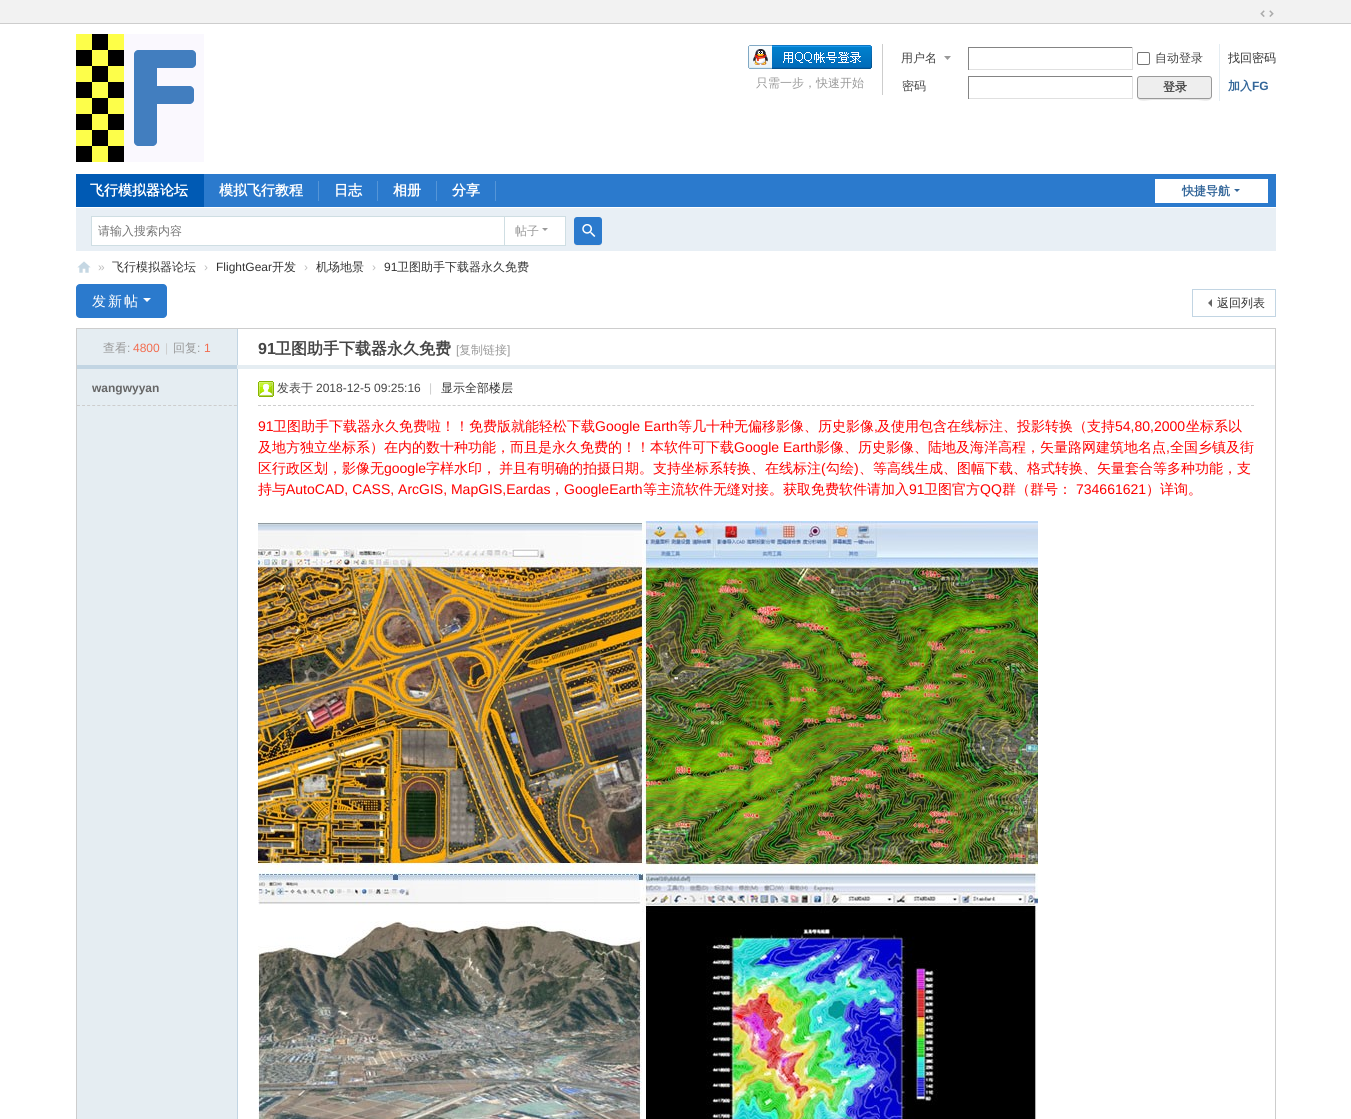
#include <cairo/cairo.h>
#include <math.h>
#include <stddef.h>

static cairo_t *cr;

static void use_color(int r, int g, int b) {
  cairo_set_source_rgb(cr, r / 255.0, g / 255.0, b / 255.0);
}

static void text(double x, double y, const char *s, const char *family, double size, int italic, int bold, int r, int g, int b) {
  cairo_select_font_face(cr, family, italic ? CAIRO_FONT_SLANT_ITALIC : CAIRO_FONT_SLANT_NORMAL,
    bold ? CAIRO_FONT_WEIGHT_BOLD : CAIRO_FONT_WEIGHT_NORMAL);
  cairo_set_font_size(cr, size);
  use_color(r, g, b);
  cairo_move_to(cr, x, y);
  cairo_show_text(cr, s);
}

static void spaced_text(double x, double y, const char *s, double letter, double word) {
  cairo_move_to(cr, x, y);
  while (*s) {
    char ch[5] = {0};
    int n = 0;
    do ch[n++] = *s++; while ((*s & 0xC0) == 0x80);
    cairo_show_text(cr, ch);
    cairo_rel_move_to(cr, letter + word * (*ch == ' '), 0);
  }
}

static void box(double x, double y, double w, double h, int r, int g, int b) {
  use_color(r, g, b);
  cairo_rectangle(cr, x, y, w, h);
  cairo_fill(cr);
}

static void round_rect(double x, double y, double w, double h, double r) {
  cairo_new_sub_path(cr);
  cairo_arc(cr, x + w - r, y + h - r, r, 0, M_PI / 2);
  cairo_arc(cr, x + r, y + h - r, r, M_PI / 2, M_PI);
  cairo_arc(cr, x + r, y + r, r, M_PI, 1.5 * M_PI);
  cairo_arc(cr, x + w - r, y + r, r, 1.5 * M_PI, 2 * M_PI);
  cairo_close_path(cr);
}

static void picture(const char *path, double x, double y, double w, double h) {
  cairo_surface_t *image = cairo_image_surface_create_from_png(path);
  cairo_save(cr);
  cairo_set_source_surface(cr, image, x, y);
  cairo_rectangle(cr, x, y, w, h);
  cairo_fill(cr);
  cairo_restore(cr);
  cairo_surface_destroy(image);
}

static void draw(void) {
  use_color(255, 255, 255);
  cairo_paint(cr);
  box(0, 0, 1351, 23, 242, 242, 242);
  box(0, 23, 1351, 1, 205, 205, 205);
  picture("img_01.png", 1260, 10, 14, 7);
  picture("img_02.png", 76, 34, 128, 128);
  box(882, 44, 1, 51, 205, 205, 205);
  picture("img_03.png", 748, 45, 124, 24);
  use_color(153, 153, 153);
  cairo_new_path(cr);
  cairo_move_to(cr, 951, 56);
  cairo_line_to(cr, 944, 56);
  cairo_line_to(cr, 947.5, 60);
  cairo_close_path(cr);
  cairo_fill(cr);
  box(968, 47, 165, 1, 132, 132, 132);
  box(1132, 47, 1, 23, 224, 224, 224);
  box(968, 69, 165, 1, 224, 224, 224);
  box(968, 47, 1, 23, 132, 132, 132);
  round_rect(1137.5, 52.5, 12, 12, 1.5);
  use_color(118, 118, 118);
  cairo_set_line_width(cr, 1);
  cairo_stroke(cr);
  box(968, 76, 165, 1, 132, 132, 132);
  box(1132, 76, 1, 23, 224, 224, 224);
  box(968, 98, 165, 1, 224, 224, 224);
  box(968, 76, 1, 23, 132, 132, 132);
  box(1219, 44, 1, 57, 229, 237, 242);
  use_color(229, 229, 229);
  cairo_new_path(cr);
  cairo_move_to(cr, 1137, 96);
  cairo_curve_to(cr, 1137, 103, 1147, 100, 1152, 100);
  cairo_line_to(cr, 1198, 100);
  cairo_curve_to(cr, 1202, 100, 1212, 103, 1212, 96);
  cairo_curve_to(cr, 1212, 98, 1211, 99, 1209, 99);
  cairo_line_to(cr, 1140, 99);
  cairo_curve_to(cr, 1138, 99, 1137, 98, 1137, 96);
  cairo_close_path(cr);
  cairo_fill(cr);
  use_color(238, 238, 238);
  round_rect(1137.5, 76.5, 74, 22, 2.5);
  cairo_fill_preserve(cr);
  use_color(153, 153, 153);
  cairo_stroke(cr);
  box(204, 174, 1072, 33, 43, 122, 205);
  box(76, 174, 128, 33, 0, 90, 180);
  box(318, 181, 1, 20, 85, 149, 215);
  box(377, 181, 1, 20, 85, 149, 215);
  box(436, 181, 1, 20, 85, 149, 215);
  box(495, 181, 1, 20, 85, 149, 215);
  box(1155, 179, 113, 24, 255, 255, 255);
  use_color(51, 102, 153);
  cairo_new_path(cr);
  cairo_move_to(cr, 1234, 189);
  cairo_line_to(cr, 1240, 189);
  cairo_line_to(cr, 1237, 192);
  cairo_close_path(cr);
  cairo_fill(cr);
  box(76, 208, 1200, 43, 232, 239, 245);
  box(503, 216, 63, 1, 207, 222, 227);
  box(565, 216, 1, 30, 207, 222, 227);
  box(503, 245, 63, 1, 207, 222, 227);
  use_color(255, 255, 255);
  cairo_rectangle(cr, 91.5, 216.5, 413, 29);
  cairo_fill_preserve(cr);
  use_color(207, 222, 227);
  cairo_stroke(cr);
  box(505, 217, 60, 28, 255, 255, 255);
  use_color(153, 153, 153);
  cairo_new_path(cr);
  cairo_move_to(cr, 542, 228);
  cairo_line_to(cr, 548, 228);
  cairo_line_to(cr, 545, 231);
  cairo_close_path(cr);
  cairo_fill(cr);
  use_color(229, 229, 229);
  cairo_new_path(cr);
  cairo_move_to(cr, 574, 242);
  cairo_curve_to(cr, 574, 246.5, 577, 246, 580.5, 246);
  cairo_line_to(cr, 595.5, 246);
  cairo_curve_to(cr, 599, 246, 602, 246.5, 602, 242);
  cairo_curve_to(cr, 602, 243.5, 600.5, 245, 599, 245);
  cairo_line_to(cr, 577, 245);
  cairo_curve_to(cr, 575.5, 245, 574, 243.5, 574, 242);
  cairo_close_path(cr);
  cairo_fill(cr);
  use_color(43, 122, 205);
  round_rect(574, 217, 28, 28, 3);
  cairo_fill(cr);
  picture("img_04.png", 582, 224, 14, 13);
  picture("img_05.png", 77, 261, 14, 12);
  round_rect(76, 284, 91, 34, 4);
  cairo_fill(cr);
  use_color(255, 255, 255);
  cairo_new_path(cr);
  cairo_move_to(cr, 143, 298);
  cairo_line_to(cr, 151, 298);
  cairo_line_to(cr, 147, 302);
  cairo_close_path(cr);
  cairo_fill(cr);
  cairo_rectangle(cr, 1192.5, 289.5, 83, 27);
  use_color(194, 213, 227);
  cairo_stroke(cr);
  use_color(102, 102, 102);
  cairo_new_path(cr);
  cairo_move_to(cr, 1212, 299);
  cairo_line_to(cr, 1212, 307);
  cairo_line_to(cr, 1208, 303);
  cairo_close_path(cr);
  cairo_fill(cr);
  cairo_rectangle(cr, 76.5, 328.5, 1199, 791);
  use_color(205, 205, 205);
  cairo_stroke(cr);
  box(237, 329, 1, 37, 194, 213, 227);
  box(77, 329, 160, 36, 229, 237, 242);
  box(77, 365, 160, 4, 194, 213, 227);
  box(237, 365, 1038, 4, 229, 237, 242);
  box(237, 369, 1, 750, 194, 213, 227);
  box(77, 369, 160, 750, 229, 237, 242);
  cairo_new_path(cr);
  cairo_move_to(cr, 77, 405.5);
  cairo_line_to(cr, 237, 405.5);
  use_color(205, 205, 205);
  cairo_set_dash(cr, (double[]){3, 2.06}, 2, 0);
  cairo_stroke(cr);
  cairo_new_path(cr);
  cairo_move_to(cr, 258, 405.5);
  cairo_line_to(cr, 1255, 405.5);
  cairo_set_dash(cr, (double[]){3, 1.99}, 2, 0);
  cairo_stroke(cr);
  picture("img_06.png", 258, 381, 16, 16);
  picture("img_07.png", 258, 521, 780, 598);
  text(756, 87, "只需一步，快速开始", "WenQuanYi Zen Hei Medium", 12, 0, 0, 153, 153, 153);
  text(901, 62, "用户名", "WenQuanYi Zen Hei Medium", 12, 0, 0, 68, 68, 68);
  text(1155, 62, "自动登录", "WenQuanYi Zen Hei Medium", 12, 0, 0, 68, 68, 68);
  text(1228, 62, "找回密码", "WenQuanYi Zen Hei Medium", 12, 0, 0, 51, 51, 51);
  text(902, 90, "密码", "WenQuanYi Zen Hei Medium", 12, 0, 0, 68, 68, 68);
  text(1163, 91, "登录", "WenQuanYi Zen Hei", 12, 0, 1, 68, 68, 68);
  text(1228, 90, "加入", "WenQuanYi Zen Hei", 12, 0, 1, 51, 102, 153);
  text(1252, 90, "FG", "Liberation Sans", 12, 0, 1, 51, 102, 153);
  text(90, 195, "飞行模拟器论坛", "WenQuanYi Zen Hei", 14, 0, 1, 255, 255, 255);
  text(219, 195, "模拟飞行教程", "WenQuanYi Zen Hei", 14, 0, 1, 255, 255, 255);
  text(334, 195, "日志", "WenQuanYi Zen Hei", 14, 0, 1, 255, 255, 255);
  text(393, 195, "相册", "WenQuanYi Zen Hei", 14, 0, 1, 255, 255, 255);
  text(452, 195, "分享", "WenQuanYi Zen Hei", 14, 0, 1, 255, 255, 255);
  text(1182, 195, "快捷导航", "WenQuanYi Zen Hei", 12, 0, 1, 51, 102, 153);
  text(98, 235, "请输入搜索内容", "WenQuanYi Zen Hei Medium", 12, 0, 0, 117, 117, 117);
  text(515, 235, "帖子", "WenQuanYi Zen Hei Medium", 12, 0, 0, 153, 153, 153);
  text(98, 271, "»", "Liberation Sans", 12, 0, 0, 189, 189, 189);
  text(112, 271, "飞行模拟器论坛", "WenQuanYi Zen Hei Medium", 12, 0, 0, 51, 51, 51);
  text(204, 271, "›", "Liberation Sans", 12, 0, 0, 189, 189, 189);
  text(216, 271, "FlightGear", "Liberation Sans", 12, 0, 0, 51, 51, 51);
  text(272, 271, "开发", "WenQuanYi Zen Hei Medium", 12, 0, 0, 51, 51, 51);
  text(304, 271, "›", "Liberation Sans", 12, 0, 0, 189, 189, 189);
  text(316, 271, "机场地景", "WenQuanYi Zen Hei Medium", 12, 0, 0, 51, 51, 51);
  text(372, 271, "›", "Liberation Sans", 12, 0, 0, 189, 189, 189);
  text(384, 271, "91", "Liberation Sans", 12, 0, 0, 51, 51, 51);
  text(397, 271, "卫图助手下载器永久免费", "WenQuanYi Zen Hei Medium", 12, 0, 0, 51, 51, 51);
  cairo_set_font_size(cr, 14);
  use_color(255, 255, 255);
  spaced_text(92, 306, "发新帖", 2, 0);
  text(1217, 307, "返回列表", "WenQuanYi Zen Hei Medium", 12, 0, 0, 51, 51, 51);
  text(103, 352, "查看", "WenQuanYi Zen Hei Medium", 12, 0, 0, 153, 153, 153);
  text(127, 352, ":", "Liberation Sans", 12, 0, 0, 153, 153, 153);
  text(133, 352, "4800", "Liberation Sans", 12, 0, 0, 242, 108, 79);
  text(165, 352, "|", "Liberation Sans", 12, 0, 0, 204, 204, 204);
  text(173, 352, "回复", "WenQuanYi Zen Hei Medium", 12, 0, 0, 153, 153, 153);
  text(197, 352, ":", "Liberation Sans", 12, 0, 0, 153, 153, 153);
  text(204, 352, "1", "Liberation Sans", 12, 0, 0, 242, 108, 79);
  text(258, 354, "91", "Liberation Sans", 16, 0, 1, 68, 68, 68);
  text(275, 354, "卫图助手下载器永久免费", "WenQuanYi Zen Hei", 16, 0, 1, 68, 68, 68);
  text(456, 354, "[", "Liberation Sans", 12, 0, 0, 153, 153, 153);
  text(459, 354, "复制链接", "WenQuanYi Zen Hei Medium", 12, 0, 0, 153, 153, 153);
  text(507, 354, "]", "Liberation Sans", 12, 0, 0, 153, 153, 153);
  text(92, 392, "wangwyyan", "Liberation Sans", 12, 0, 1, 102, 102, 102);
  text(277, 392, "发表于", "WenQuanYi Zen Hei Medium", 12, 0, 0, 68, 68, 68);
  text(316, 392, "2018-12-5 09:25:16", "Liberation Sans", 12, 0, 0, 68, 68, 68);
  text(429, 392, "|", "Liberation Sans", 12, 0, 0, 204, 204, 204);
  text(441, 392, "显示全部楼层", "WenQuanYi Zen Hei Medium", 12, 0, 0, 51, 51, 51);
  text(258, 431, "91", "Liberation Sans", 14, 0, 0, 255, 0, 0);
  text(273, 431, "卫图助手下载器永久免费啦！！免费版就能轻松下载", "WenQuanYi Zen Hei Medium", 14, 0, 0, 255, 0, 0);
  text(595, 431, "Google Earth", "Liberation Sans", 14, 0, 0, 255, 0, 0);
  text(678, 431, "等几十种无偏移影像、历史影像", "WenQuanYi Zen Hei Medium", 14, 0, 0, 255, 0, 0);
  text(874, 431, ",", "Liberation Sans", 14, 0, 0, 255, 0, 0);
  text(877, 431, "及使用包含在线标注、投影转换（支持", "WenQuanYi Zen Hei Medium", 14, 0, 0, 255, 0, 0);
  text(1115, 431, "54,80,2000", "Liberation Sans", 14, 0, 0, 255, 0, 0);
  text(1186, 431, "坐标系以", "WenQuanYi Zen Hei Medium", 14, 0, 0, 255, 0, 0);
  text(258, 452, "及地方独立坐标系）在内的数十种功能，而且是永久免费的！！本软件可下载", "WenQuanYi Zen Hei Medium", 14, 0, 0, 255, 0, 0);
  text(734, 452, "Google Earth", "Liberation Sans", 14, 0, 0, 255, 0, 0);
  text(816, 452, "影像、历史影像、陆地及海洋高程，矢量路网建筑地名点", "WenQuanYi Zen Hei Medium", 14, 0, 0, 255, 0, 0);
  text(1166, 452, ",", "Liberation Sans", 14, 0, 0, 255, 0, 0);
  text(1170, 452, "全国乡镇及街", "WenQuanYi Zen Hei Medium", 14, 0, 0, 255, 0, 0);
  text(258, 473, "区行政区划，影像无", "WenQuanYi Zen Hei Medium", 14, 0, 0, 255, 0, 0);
  text(384, 473, "google", "Liberation Sans", 14, 0, 0, 255, 0, 0);
  text(426, 473, "字样水印，", "WenQuanYi Zen Hei Medium", 14, 0, 0, 255, 0, 0);
  text(499, 473, "并且有明确的拍摄日期。支持坐标系转换、在线标注", "WenQuanYi Zen Hei Medium", 14, 0, 0, 255, 0, 0);
  text(821, 473, "(", "Liberation Sans", 14, 0, 0, 255, 0, 0);
  text(826, 473, "勾绘", "WenQuanYi Zen Hei Medium", 14, 0, 0, 255, 0, 0);
  text(854, 473, ")", "Liberation Sans", 14, 0, 0, 255, 0, 0);
  text(859, 473, "、等高线生成、图幅下载、格式转换、矢量套合等多种功能，支", "WenQuanYi Zen Hei Medium", 14, 0, 0, 255, 0, 0);
  text(258, 494, "持与", "WenQuanYi Zen Hei Medium", 14, 0, 0, 255, 0, 0);
  text(286, 494, "AutoCAD, CASS, ArcGIS, MapGIS,Eardas", "Liberation Sans", 14, 0, 0, 255, 0, 0);
  text(550, 494, "，", "WenQuanYi Zen Hei Medium", 14, 0, 0, 255, 0, 0);
  text(564, 494, "GoogleEarth", "Liberation Sans", 14, 0, 0, 255, 0, 0);
  text(643, 494, "等主流软件无缝对接。获取免费软件请加入", "WenQuanYi Zen Hei Medium", 14, 0, 0, 255, 0, 0);
  text(909, 494, "91", "Liberation Sans", 14, 0, 0, 255, 0, 0);
  text(924, 494, "卫图官方", "WenQuanYi Zen Hei Medium", 14, 0, 0, 255, 0, 0);
  text(980, 494, "QQ", "Liberation Sans", 14, 0, 0, 255, 0, 0);
  text(1002, 494, "群（群号：", "WenQuanYi Zen Hei Medium", 14, 0, 0, 255, 0, 0);
  text(1076, 494, "734661621", "Liberation Sans", 14, 0, 0, 255, 0, 0);
  text(1146, 494, "）详询。", "WenQuanYi Zen Hei Medium", 14, 0, 0, 255, 0, 0);
}

int main(void) {
  cairo_surface_t *surface = cairo_image_surface_create(CAIRO_FORMAT_RGB24, 1351, 1119);
  cr = cairo_create(surface);
  cairo_font_options_t *options = cairo_font_options_create();
  cairo_font_options_set_hint_metrics(options, CAIRO_HINT_METRICS_OFF);
  cairo_font_options_set_hint_style(options, CAIRO_HINT_STYLE_NONE);
  cairo_set_font_options(cr, options);
  cairo_set_miter_limit(cr, 4);
  draw();
  cairo_surface_write_to_png(surface, "out.png");
  cairo_font_options_destroy(options);
  cairo_destroy(cr);
  cairo_surface_destroy(surface);
  return 0;
}
